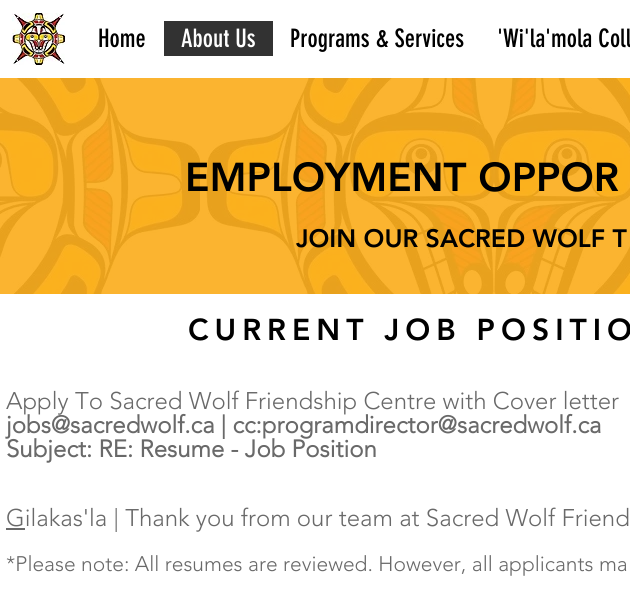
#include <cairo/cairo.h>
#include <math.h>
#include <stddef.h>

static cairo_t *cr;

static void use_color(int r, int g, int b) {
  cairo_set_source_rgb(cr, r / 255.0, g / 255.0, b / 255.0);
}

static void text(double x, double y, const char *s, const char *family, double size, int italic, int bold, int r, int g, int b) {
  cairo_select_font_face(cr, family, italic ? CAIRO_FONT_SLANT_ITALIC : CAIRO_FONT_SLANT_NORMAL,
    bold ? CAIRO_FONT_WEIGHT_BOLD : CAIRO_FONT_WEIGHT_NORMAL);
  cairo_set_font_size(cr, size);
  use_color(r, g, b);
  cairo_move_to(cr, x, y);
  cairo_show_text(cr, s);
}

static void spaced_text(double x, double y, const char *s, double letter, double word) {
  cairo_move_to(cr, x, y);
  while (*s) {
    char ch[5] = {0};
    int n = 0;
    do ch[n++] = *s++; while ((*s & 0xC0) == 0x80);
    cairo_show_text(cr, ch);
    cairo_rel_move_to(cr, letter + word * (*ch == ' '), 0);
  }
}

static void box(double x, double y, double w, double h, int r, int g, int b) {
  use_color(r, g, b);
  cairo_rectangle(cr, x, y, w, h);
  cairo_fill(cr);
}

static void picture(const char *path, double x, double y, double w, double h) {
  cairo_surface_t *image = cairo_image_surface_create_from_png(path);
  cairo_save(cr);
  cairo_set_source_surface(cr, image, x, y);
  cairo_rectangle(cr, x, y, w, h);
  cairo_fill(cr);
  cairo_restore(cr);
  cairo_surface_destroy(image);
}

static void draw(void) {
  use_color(255, 255, 255);
  cairo_paint(cr);
  picture("img_01.png", 12, 13, 53, 52);
  box(164, 21, 109, 35, 50, 50, 50);
  box(0, 78, 630, 216, 250, 162, 0);
  picture("img_02.png", 0, 78, 630, 216);
  box(6, 528, 19, 2, 105, 105, 105);
  text(98, 47, "Home", "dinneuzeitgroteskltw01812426", 25, 0, 0, 0, 0, 0);
  text(181, 47, "About Us", "dinneuzeitgroteskltw01812426", 25, 0, 0, 255, 255, 255);
  text(290, 47, "Programs & Services", "dinneuzeitgroteskltw01812426", 25, 0, 0, 0, 0, 0);
  text(497, 47, "'Wi'la'mola Coll", "dinneuzeitgroteskltw01812426", 25, 0, 0, 0, 0, 0);
  text(185, 191, "EMPLOYMENT OPPOR", "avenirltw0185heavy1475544 Black", 40, 0, 0, 0, 0, 0);
  text(296, 247, "JOIN OUR SACRED WOLF T", "avenirltw0185heavy1475544 Black", 25, 0, 0, 0, 0, 0);
  cairo_set_font_size(cr, 30);
  spaced_text(188, 340, "CURRENT JOB POSITIO", 6, 0);
  text(6, 409, "Apply To Sacred Wolf Friendship Centre with Cover letter", "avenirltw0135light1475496 Light", 24, 0, 0, 105, 105, 105);
  text(6, 433, "jobs@sacredwolf.ca | cc:programdirector@sacredwolf.ca", "avenirltw0135light1475496", 24, 0, 1, 105, 105, 105);
  text(6, 457, "Subject: RE: Resume - Job Position", "avenirltw0135light1475496", 24, 0, 1, 105, 105, 105);
  text(6, 526, "Gilakas'la | Thank you from our team at Sacred Wolf Friend", "avenirltw0135light1475496 Light", 24, 0, 0, 105, 105, 105);
  text(6, 571, "*Please note: All resumes are reviewed. However, all applicants ma", "avenirltw0135light1475496 Light", 21, 0, 0, 105, 105, 105);
}

int main(void) {
  cairo_surface_t *surface = cairo_image_surface_create(CAIRO_FORMAT_RGB24, 630, 598);
  cr = cairo_create(surface);
  cairo_font_options_t *options = cairo_font_options_create();
  cairo_font_options_set_hint_metrics(options, CAIRO_HINT_METRICS_OFF);
  cairo_font_options_set_hint_style(options, CAIRO_HINT_STYLE_NONE);
  cairo_set_font_options(cr, options);
  cairo_set_miter_limit(cr, 4);
  draw();
  cairo_surface_write_to_png(surface, "out.png");
  cairo_font_options_destroy(options);
  cairo_destroy(cr);
  cairo_surface_destroy(surface);
  return 0;
}
